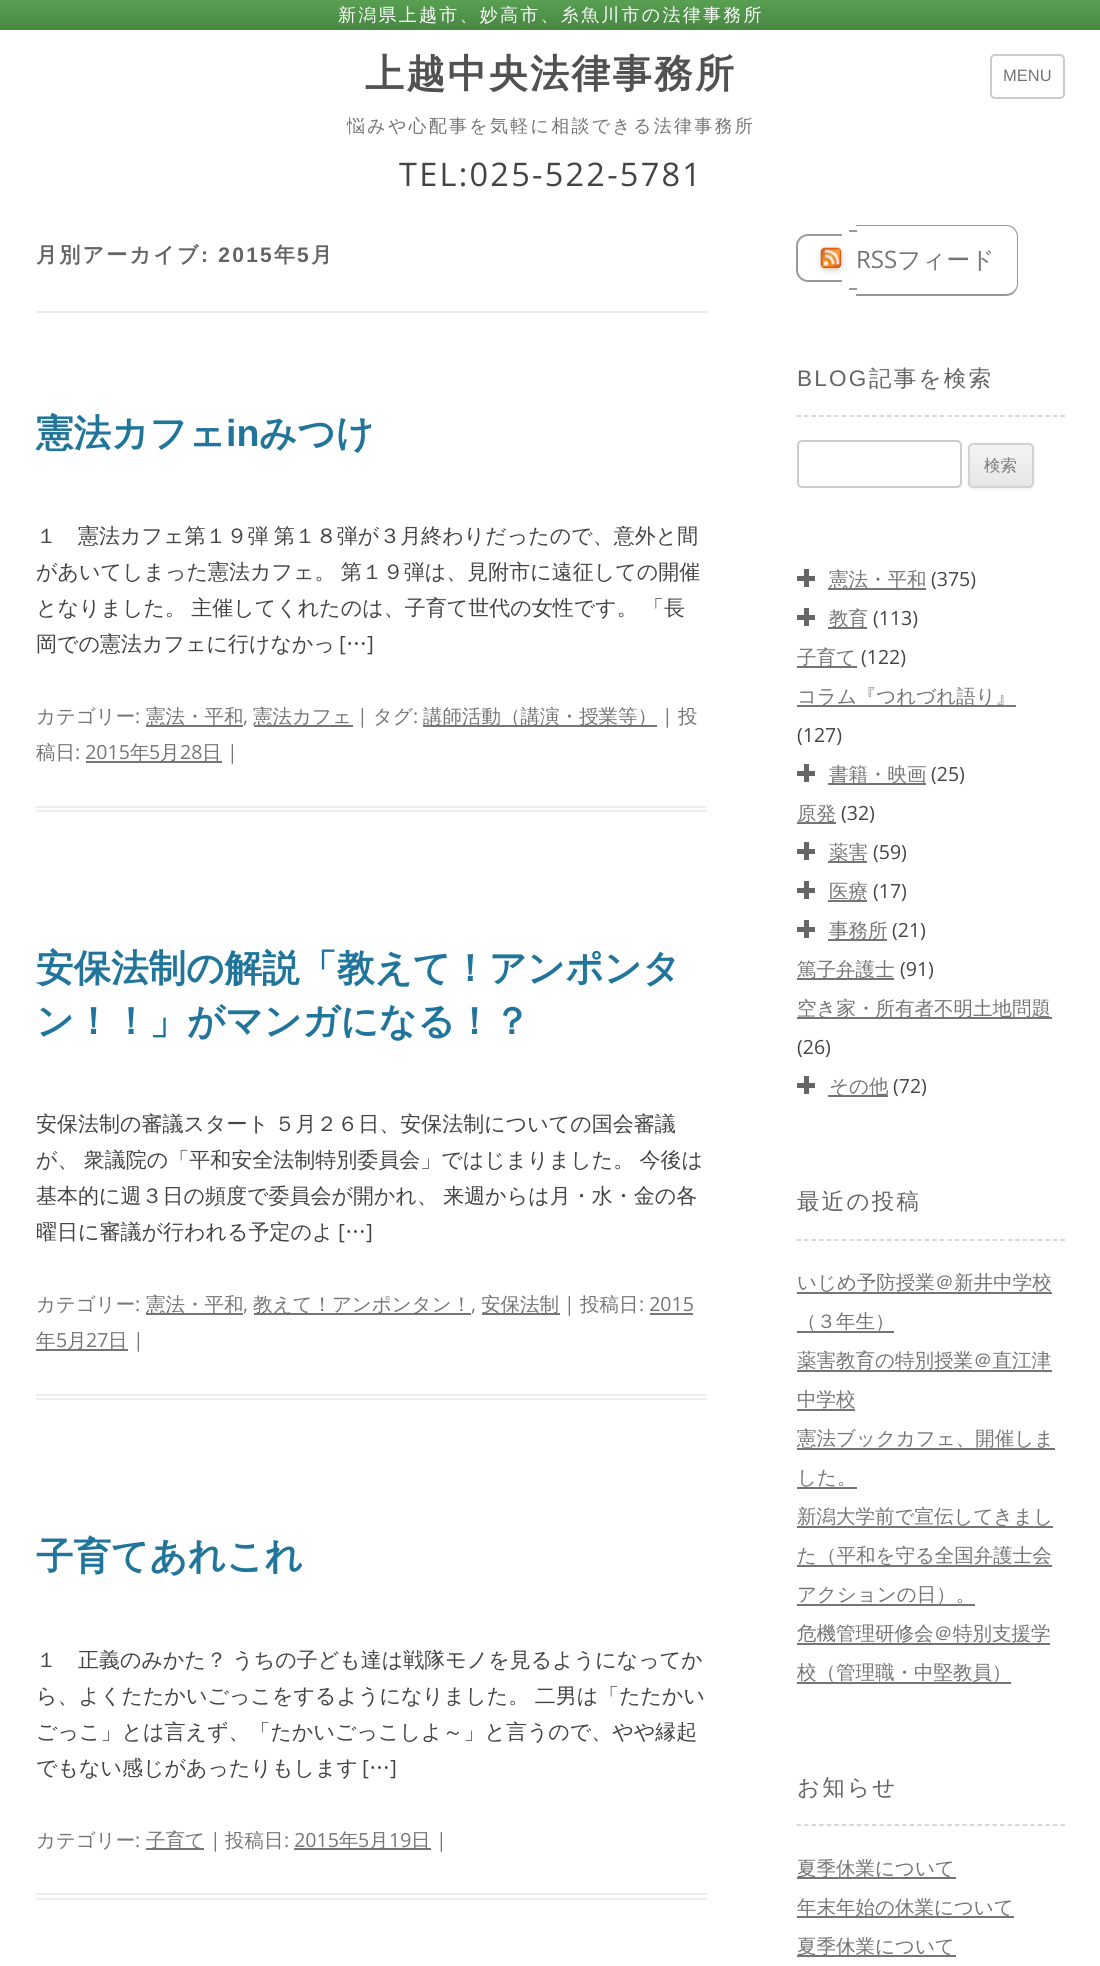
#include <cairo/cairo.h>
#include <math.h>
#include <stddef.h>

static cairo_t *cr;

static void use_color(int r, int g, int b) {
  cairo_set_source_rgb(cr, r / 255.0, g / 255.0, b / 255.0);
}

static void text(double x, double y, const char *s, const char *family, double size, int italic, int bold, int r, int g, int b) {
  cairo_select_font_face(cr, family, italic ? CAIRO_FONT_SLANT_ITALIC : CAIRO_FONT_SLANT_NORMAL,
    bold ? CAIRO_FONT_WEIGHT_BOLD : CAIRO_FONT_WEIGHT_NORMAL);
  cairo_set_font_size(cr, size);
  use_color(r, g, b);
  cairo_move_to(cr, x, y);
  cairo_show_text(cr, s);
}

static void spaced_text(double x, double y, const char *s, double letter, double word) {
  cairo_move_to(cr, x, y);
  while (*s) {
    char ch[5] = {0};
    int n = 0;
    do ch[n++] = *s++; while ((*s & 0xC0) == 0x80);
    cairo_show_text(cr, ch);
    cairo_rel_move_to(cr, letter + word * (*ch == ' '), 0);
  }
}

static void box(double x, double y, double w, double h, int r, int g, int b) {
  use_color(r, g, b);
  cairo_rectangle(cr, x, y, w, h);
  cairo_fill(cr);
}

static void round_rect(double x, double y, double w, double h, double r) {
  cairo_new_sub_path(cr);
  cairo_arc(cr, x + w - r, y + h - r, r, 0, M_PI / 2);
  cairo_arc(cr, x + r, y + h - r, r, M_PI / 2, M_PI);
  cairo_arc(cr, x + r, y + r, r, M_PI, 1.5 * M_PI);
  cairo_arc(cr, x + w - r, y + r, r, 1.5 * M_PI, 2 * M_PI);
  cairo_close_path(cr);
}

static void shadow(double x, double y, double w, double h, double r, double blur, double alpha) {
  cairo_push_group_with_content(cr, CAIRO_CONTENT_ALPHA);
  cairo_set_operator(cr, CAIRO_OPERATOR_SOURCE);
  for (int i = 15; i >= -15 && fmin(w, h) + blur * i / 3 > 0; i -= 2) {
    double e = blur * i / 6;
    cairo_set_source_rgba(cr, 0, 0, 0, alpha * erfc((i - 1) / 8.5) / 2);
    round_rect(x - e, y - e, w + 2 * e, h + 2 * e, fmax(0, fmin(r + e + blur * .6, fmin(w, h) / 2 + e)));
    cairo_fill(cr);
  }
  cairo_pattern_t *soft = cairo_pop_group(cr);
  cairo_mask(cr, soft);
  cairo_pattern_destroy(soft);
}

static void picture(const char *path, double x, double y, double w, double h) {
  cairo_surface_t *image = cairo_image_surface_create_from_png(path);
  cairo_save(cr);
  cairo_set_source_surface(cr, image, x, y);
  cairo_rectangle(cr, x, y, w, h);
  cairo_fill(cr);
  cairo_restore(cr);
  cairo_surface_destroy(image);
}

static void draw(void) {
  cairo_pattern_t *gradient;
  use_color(255, 255, 255);
  cairo_paint(cr);
  picture("img_01.png", 0, 0, 1100, 30);
  round_rect(991, 55, 73, 43, 4);
  use_color(204, 204, 204);
  cairo_stroke(cr);
  box(36, 311, 671, 2, 237, 237, 237);
  box(36, 806, 671, 2, 237, 237, 237);
  box(36, 810, 671, 2, 237, 237, 237);
  box(146, 725, 97, 2, 117, 117, 117);
  box(254, 725, 99, 2, 117, 117, 117);
  box(423, 725, 234, 2, 117, 117, 117);
  box(86, 761, 136, 2, 117, 117, 117);
  box(36, 1394, 671, 2, 237, 237, 237);
  box(36, 1398, 671, 2, 237, 237, 237);
  box(146, 1313, 97, 2, 117, 117, 117);
  box(254, 1313, 217, 2, 117, 117, 117);
  box(482, 1313, 78, 2, 117, 117, 117);
  box(36, 1349, 92, 2, 117, 117, 117);
  box(650, 1313, 43, 2, 117, 117, 117);
  box(36, 1893, 671, 2, 237, 237, 237);
  box(36, 1898, 671, 2, 237, 237, 237);
  box(146, 1848, 58, 2, 117, 117, 117);
  box(294, 1848, 137, 2, 117, 117, 117);
  use_color(153, 153, 153);
  cairo_set_fill_rule(cr, CAIRO_FILL_RULE_EVEN_ODD);
  cairo_new_path(cr);
  cairo_move_to(cr, 808, 234);
  cairo_line_to(cr, 842, 234);
  cairo_line_to(cr, 842, 282);
  cairo_line_to(cr, 808, 282);
  cairo_curve_to(cr, 802, 282, 796, 277, 796, 270);
  cairo_line_to(cr, 796, 246);
  cairo_curve_to(cr, 796, 239, 802, 234, 808, 234);
  cairo_close_path(cr);
  cairo_move_to(cr, 808, 236);
  cairo_line_to(cr, 842, 236);
  cairo_line_to(cr, 842, 280);
  cairo_line_to(cr, 808, 280);
  cairo_curve_to(cr, 803, 280, 798, 276, 798, 270);
  cairo_line_to(cr, 798, 246);
  cairo_curve_to(cr, 798, 240, 803, 236, 808, 236);
  cairo_close_path(cr);
  cairo_fill(cr);
  box(849, 230, 8, 2, 153, 153, 153);
  box(849, 288, 8, 2, 153, 153, 153);
  cairo_new_path(cr);
  cairo_move_to(cr, 856, 225);
  cairo_line_to(cr, 1006, 225);
  cairo_curve_to(cr, 1013, 225, 1018, 230, 1018, 237);
  cairo_line_to(cr, 1018, 284);
  cairo_curve_to(cr, 1018, 290, 1013, 296, 1006, 296);
  cairo_line_to(cr, 856, 296);
  cairo_close_path(cr);
  cairo_move_to(cr, 856, 226);
  cairo_line_to(cr, 1006, 226);
  cairo_curve_to(cr, 1012, 226, 1017, 231, 1017, 237);
  cairo_line_to(cr, 1017, 284);
  cairo_curve_to(cr, 1017, 289, 1012, 294, 1006, 294);
  cairo_line_to(cr, 856, 294);
  cairo_close_path(cr);
  cairo_fill(cr);
  cairo_save(cr);
  cairo_new_path(cr);
  cairo_move_to(cr, 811, 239);
  cairo_line_to(cr, 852, 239);
  cairo_line_to(cr, 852, 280);
  cairo_line_to(cr, 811, 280);
  cairo_close_path(cr);
  cairo_move_to(cr, 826, 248);
  cairo_line_to(cr, 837, 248);
  cairo_curve_to(cr, 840, 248, 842, 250, 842, 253);
  cairo_line_to(cr, 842, 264);
  cairo_curve_to(cr, 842, 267, 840, 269, 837, 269);
  cairo_line_to(cr, 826, 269);
  cairo_curve_to(cr, 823, 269, 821, 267, 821, 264);
  cairo_line_to(cr, 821, 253);
  cairo_curve_to(cr, 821, 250, 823, 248, 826, 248);
  cairo_close_path(cr);
  cairo_clip(cr);
  use_color(0, 0, 0);
  shadow(821, 249, 21, 21, 5, 3, 0.2);
  cairo_restore(cr);
  picture("img_02.png", 820, 247, 22, 22);
  cairo_new_path(cr);
  cairo_move_to(cr, 796.5, 416);
  cairo_line_to(cr, 1065, 416);
  use_color(204, 204, 204);
  cairo_set_line_width(cr, 1.5);
  cairo_set_dash(cr, (double[]){4.5, 3.04}, 2, 0);
  cairo_stroke(cr);
  round_rect(798, 441, 163, 46, 4);
  cairo_set_line_width(cr, 2);
  cairo_set_dash(cr, NULL, 0, 0);
  cairo_stroke(cr);
  use_color(64, 64, 64);
  shadow(968, 444, 66, 45, 5, 1.5, 0.1);
  cairo_save(cr);
  cairo_set_fill_rule(cr, CAIRO_FILL_RULE_WINDING);
  round_rect(968, 443, 66, 45, 5);
  cairo_clip(cr);
  gradient = cairo_pattern_create_linear(1001, 444, 1001, 486);
  cairo_pattern_add_color_stop_rgba(gradient, 0, 0.957, 0.957, 0.957, 1);
  cairo_pattern_add_color_stop_rgba(gradient, 1, 0.902, 0.902, 0.902, 1);
  cairo_set_source(cr, gradient);
  cairo_pattern_destroy(gradient);
  cairo_rectangle(cr, 968, 444, 66, 42);
  cairo_fill(cr);
  cairo_restore(cr);
  round_rect(969, 444, 64, 43, 4);
  use_color(210, 210, 210);
  cairo_stroke(cr);
  box(797, 576, 18, 5, 102, 102, 102);
  box(804, 569, 5, 18, 102, 102, 102);
  box(828, 588, 98, 2, 117, 117, 117);
  box(797, 615, 18, 5, 102, 102, 102);
  box(804, 608, 5, 18, 102, 102, 102);
  box(828, 627, 39, 2, 117, 117, 117);
  box(797, 666, 60, 2, 117, 117, 117);
  box(797, 705, 219, 2, 117, 117, 117);
  box(797, 771, 18, 5, 102, 102, 102);
  box(804, 764, 5, 18, 102, 102, 102);
  box(828, 783, 98, 2, 117, 117, 117);
  box(797, 822, 39, 2, 117, 117, 117);
  box(797, 849, 18, 5, 102, 102, 102);
  box(804, 842, 5, 18, 102, 102, 102);
  box(828, 861, 39, 2, 117, 117, 117);
  box(797, 888, 18, 5, 102, 102, 102);
  box(804, 881, 5, 18, 102, 102, 102);
  box(828, 900, 39, 2, 117, 117, 117);
  box(797, 927, 18, 5, 102, 102, 102);
  box(804, 920, 5, 18, 102, 102, 102);
  box(828, 939, 59, 2, 117, 117, 117);
  box(797, 978, 97, 2, 117, 117, 117);
  box(797, 1017, 255, 2, 117, 117, 117);
  box(797, 1083, 18, 5, 102, 102, 102);
  box(804, 1076, 5, 18, 102, 102, 102);
  box(828, 1095, 60, 2, 117, 117, 117);
  cairo_new_path(cr);
  cairo_move_to(cr, 796.5, 1240);
  cairo_line_to(cr, 1065, 1240);
  use_color(204, 204, 204);
  cairo_set_line_width(cr, 1.5);
  cairo_set_dash(cr, (double[]){4.5, 3.04}, 2, 0);
  cairo_stroke(cr);
  box(797, 1292, 255, 2, 117, 117, 117);
  box(797, 1331, 97, 2, 117, 117, 117);
  box(797, 1370, 255, 2, 117, 117, 117);
  box(797, 1409, 58, 2, 117, 117, 117);
  box(797, 1448, 258, 2, 117, 117, 117);
  box(797, 1487, 60, 2, 117, 117, 117);
  box(797, 1526, 256, 2, 117, 117, 117);
  box(797, 1565, 255, 2, 117, 117, 117);
  box(797, 1604, 178, 2, 117, 117, 117);
  box(797, 1643, 253, 2, 117, 117, 117);
  box(797, 1682, 214, 2, 117, 117, 117);
  cairo_new_path(cr);
  cairo_move_to(cr, 796.5, 1825);
  cairo_line_to(cr, 1065, 1825);
  use_color(204, 204, 204);
  cairo_stroke(cr);
  box(797, 1877, 159, 2, 117, 117, 117);
  box(797, 1916, 217, 2, 117, 117, 117);
  box(797, 1955, 159, 2, 117, 117, 117);
  cairo_select_font_face(cr, "WenQuanYi Zen Hei Medium", CAIRO_FONT_SLANT_NORMAL, CAIRO_FONT_WEIGHT_NORMAL);
  cairo_set_font_size(cr, 18);
  use_color(255, 255, 255);
  spaced_text(338, 21, "新潟県上越市、妙高市、糸魚川市の法律事務所", 2.25, 0);
  cairo_select_font_face(cr, "Open Sans", CAIRO_FONT_SLANT_NORMAL, CAIRO_FONT_WEIGHT_NORMAL);
  cairo_set_font_size(cr, 32.5);
  use_color(68, 68, 68);
  spaced_text(399, 186, "TEL:025-522-5781", 2.25, 0);
  cairo_select_font_face(cr, "WenQuanYi Zen Hei", CAIRO_FONT_SLANT_NORMAL, CAIRO_FONT_WEIGHT_BOLD);
  cairo_set_font_size(cr, 39);
  use_color(81, 81, 81);
  spaced_text(365, 87, "上越中央法律事務所", 2.25, 0);
  cairo_select_font_face(cr, "WenQuanYi Zen Hei Medium", CAIRO_FONT_SLANT_NORMAL, CAIRO_FONT_WEIGHT_NORMAL);
  cairo_set_font_size(cr, 18);
  use_color(117, 117, 117);
  spaced_text(347, 132, "悩みや心配事を気軽に相談できる法律事務所", 2.25, 0);
  text(1003, 81, "MENU", "Liberation Sans", 16.5, 0, 0, 117, 117, 117);
  cairo_select_font_face(cr, "WenQuanYi Zen Hei", CAIRO_FONT_SLANT_NORMAL, CAIRO_FONT_WEIGHT_BOLD);
  cairo_set_font_size(cr, 21);
  use_color(99, 99, 99);
  spaced_text(36, 262, "月別アーカイブ", 2.25, 0);
  cairo_select_font_face(cr, "Liberation Sans", CAIRO_FONT_SLANT_NORMAL, CAIRO_FONT_WEIGHT_BOLD);
  spaced_text(201, 262, ": 2015", 2.25, 0);
  cairo_select_font_face(cr, "WenQuanYi Zen Hei", CAIRO_FONT_SLANT_NORMAL, CAIRO_FONT_WEIGHT_BOLD);
  spaced_text(274, 262, "年", 2.25, 0);
  cairo_select_font_face(cr, "Liberation Sans", CAIRO_FONT_SLANT_NORMAL, CAIRO_FONT_WEIGHT_BOLD);
  spaced_text(297, 262, "5", 2.25, 0);
  cairo_select_font_face(cr, "WenQuanYi Zen Hei", CAIRO_FONT_SLANT_NORMAL, CAIRO_FONT_WEIGHT_BOLD);
  spaced_text(311, 262, "月", 2.25, 0);
  text(36, 446, "憲法カフェ", "WenQuanYi Zen Hei", 37.5, 0, 1, 33, 117, 155);
  text(226, 446, "in", "Liberation Sans", 37.5, 0, 1, 33, 117, 155);
  text(259, 446, "みつけ", "WenQuanYi Zen Hei", 37.5, 0, 1, 33, 117, 155);
  cairo_select_font_face(cr, "WenQuanYi Zen Hei Medium", CAIRO_FONT_SLANT_NORMAL, CAIRO_FONT_WEIGHT_NORMAL);
  cairo_set_font_size(cr, 21);
  use_color(68, 68, 68);
  spaced_text(36, 543, "１　憲法カフェ第１９弾 第１８弾が３月終わりだったので、意外と間", 0, -1);
  spaced_text(36, 579, "があいてしまった憲法カフェ。 第１９弾は、見附市に遠征しての開催", 0, -1);
  spaced_text(36, 615, "となりました。 主催してくれたのは、子育て世代の女性です。 「長", 0, -1);
  text(36, 651, "岡での憲法カフェに行けなかっ", "WenQuanYi Zen Hei Medium", 21, 0, 0, 68, 68, 68);
  text(339, 651, "[", "Open Sans", 21, 0, 0, 68, 68, 68);
  text(346, 651, "…", "WenQuanYi Zen Hei Medium", 21, 0, 0, 68, 68, 68);
  text(367, 651, "]", "Open Sans", 21, 0, 0, 68, 68, 68);
  text(36, 723, "カテゴリー", "WenQuanYi Zen Hei Medium", 19.5, 0, 0, 117, 117, 117);
  text(135, 723, ":", "Open Sans", 19.5, 0, 0, 117, 117, 117);
  text(146, 723, "憲法・平和", "WenQuanYi Zen Hei Medium", 19.5, 0, 0, 117, 117, 117);
  text(243, 723, ",", "Open Sans", 19.5, 0, 0, 117, 117, 117);
  text(253, 723, "憲法カフェ", "WenQuanYi Zen Hei Medium", 19.5, 0, 0, 117, 117, 117);
  text(357, 723, "|", "Open Sans", 19.5, 0, 0, 117, 117, 117);
  text(373, 723, "タグ", "WenQuanYi Zen Hei Medium", 19.5, 0, 0, 117, 117, 117);
  text(413, 723, ":", "Open Sans", 19.5, 0, 0, 117, 117, 117);
  text(423, 723, "講師活動（講演・授業等）", "WenQuanYi Zen Hei Medium", 19.5, 0, 0, 117, 117, 117);
  text(662, 723, "|", "Open Sans", 19.5, 0, 0, 117, 117, 117);
  text(678, 723, "投", "WenQuanYi Zen Hei Medium", 19.5, 0, 0, 117, 117, 117);
  text(36, 759, "稿日", "WenQuanYi Zen Hei Medium", 19.5, 0, 0, 117, 117, 117);
  text(75, 759, ": 2015", "Open Sans", 19.5, 0, 0, 117, 117, 117);
  text(130, 759, "年", "WenQuanYi Zen Hei Medium", 19.5, 0, 0, 117, 117, 117);
  text(149, 759, "5", "Open Sans", 19.5, 0, 0, 117, 117, 117);
  text(160, 759, "月", "WenQuanYi Zen Hei Medium", 19.5, 0, 0, 117, 117, 117);
  text(180, 759, "28", "Open Sans", 19.5, 0, 0, 117, 117, 117);
  text(202, 759, "日", "WenQuanYi Zen Hei Medium", 19.5, 0, 0, 117, 117, 117);
  text(227, 759, "|", "Open Sans", 19.5, 0, 0, 117, 117, 117);
  text(36, 981, "安保法制の解説「教えて！アンポンタ", "WenQuanYi Zen Hei", 37.5, 0, 1, 33, 117, 155);
  text(36, 1034, "ン！！」がマンガになる！？", "WenQuanYi Zen Hei", 37.5, 0, 1, 33, 117, 155);
  cairo_select_font_face(cr, "WenQuanYi Zen Hei Medium", CAIRO_FONT_SLANT_NORMAL, CAIRO_FONT_WEIGHT_NORMAL);
  cairo_set_font_size(cr, 21);
  use_color(68, 68, 68);
  spaced_text(36, 1131, "安保法制の審議スタート ５月２６日、安保法制についての国会審議", 0, -1);
  spaced_text(36, 1167, "が、 衆議院の「平和安全法制特別委員会」ではじまりました。 今後は", 0, -1);
  spaced_text(36, 1203, "基本的に週３日の頻度で委員会が開かれ、 来週からは月・水・金の各", 0, -1);
  text(36, 1239, "曜日に審議が行われる予定のよ", "WenQuanYi Zen Hei Medium", 21, 0, 0, 68, 68, 68);
  text(338, 1239, "[", "Open Sans", 21, 0, 0, 68, 68, 68);
  text(345, 1239, "…", "WenQuanYi Zen Hei Medium", 21, 0, 0, 68, 68, 68);
  text(366, 1239, "]", "Open Sans", 21, 0, 0, 68, 68, 68);
  text(36, 1311, "カテゴリー", "WenQuanYi Zen Hei Medium", 19.5, 0, 0, 117, 117, 117);
  text(135, 1311, ":", "Open Sans", 19.5, 0, 0, 117, 117, 117);
  text(146, 1311, "憲法・平和", "WenQuanYi Zen Hei Medium", 19.5, 0, 0, 117, 117, 117);
  text(243, 1311, ",", "Open Sans", 19.5, 0, 0, 117, 117, 117);
  text(253, 1311, "教えて！アンポンタン！", "WenQuanYi Zen Hei Medium", 19.5, 0, 0, 117, 117, 117);
  text(471, 1311, ",", "Open Sans", 19.5, 0, 0, 117, 117, 117);
  text(481, 1311, "安保法制", "WenQuanYi Zen Hei Medium", 19.5, 0, 0, 117, 117, 117);
  text(564, 1311, "|", "Open Sans", 19.5, 0, 0, 117, 117, 117);
  text(580, 1311, "投稿日", "WenQuanYi Zen Hei Medium", 19.5, 0, 0, 117, 117, 117);
  text(639, 1311, ": 2015", "Open Sans", 19.5, 0, 0, 117, 117, 117);
  text(36, 1347, "年", "WenQuanYi Zen Hei Medium", 19.5, 0, 0, 117, 117, 117);
  text(56, 1347, "5", "Open Sans", 19.5, 0, 0, 117, 117, 117);
  text(67, 1347, "月", "WenQuanYi Zen Hei Medium", 19.5, 0, 0, 117, 117, 117);
  text(86, 1347, "27", "Open Sans", 19.5, 0, 0, 117, 117, 117);
  text(108, 1347, "日", "WenQuanYi Zen Hei Medium", 19.5, 0, 0, 117, 117, 117);
  text(133, 1347, "|", "Open Sans", 19.5, 0, 0, 117, 117, 117);
  text(36, 1569, "子育てあれこれ", "WenQuanYi Zen Hei", 37.5, 0, 1, 33, 117, 155);
  cairo_select_font_face(cr, "WenQuanYi Zen Hei Medium", CAIRO_FONT_SLANT_NORMAL, CAIRO_FONT_WEIGHT_NORMAL);
  cairo_set_font_size(cr, 21);
  use_color(68, 68, 68);
  spaced_text(36, 1667, "１　正義のみかた？ うちの子ども達は戦隊モノを見るようになってか", 0, -1);
  spaced_text(36, 1703, "ら、よくたたかいごっこをするようになりました。 二男は「たたかい", 0, -1);
  text(36, 1739, "ごっこ」とは言えず、「たかいごっこしよ～」と言うので、やや縁起", "WenQuanYi Zen Hei Medium", 21, 0, 0, 68, 68, 68);
  text(36, 1775, "でもない感じがあったりもします", "WenQuanYi Zen Hei Medium", 21, 0, 0, 68, 68, 68);
  text(362, 1775, "[", "Open Sans", 21, 0, 0, 68, 68, 68);
  text(369, 1775, "…", "WenQuanYi Zen Hei Medium", 21, 0, 0, 68, 68, 68);
  text(390, 1775, "]", "Open Sans", 21, 0, 0, 68, 68, 68);
  text(36, 1847, "カテゴリー", "WenQuanYi Zen Hei Medium", 19.5, 0, 0, 117, 117, 117);
  text(135, 1847, ":", "Open Sans", 19.5, 0, 0, 117, 117, 117);
  text(146, 1847, "子育て", "WenQuanYi Zen Hei Medium", 19.5, 0, 0, 117, 117, 117);
  text(210, 1847, "|", "Open Sans", 19.5, 0, 0, 117, 117, 117);
  text(225, 1847, "投稿日", "WenQuanYi Zen Hei Medium", 19.5, 0, 0, 117, 117, 117);
  text(284, 1847, ": 2015", "Open Sans", 19.5, 0, 0, 117, 117, 117);
  text(339, 1847, "年", "WenQuanYi Zen Hei Medium", 19.5, 0, 0, 117, 117, 117);
  text(358, 1847, "5", "Open Sans", 19.5, 0, 0, 117, 117, 117);
  text(369, 1847, "月", "WenQuanYi Zen Hei Medium", 19.5, 0, 0, 117, 117, 117);
  text(389, 1847, "19", "Open Sans", 19.5, 0, 0, 117, 117, 117);
  text(411, 1847, "日", "WenQuanYi Zen Hei Medium", 19.5, 0, 0, 117, 117, 117);
  text(436, 1847, "|", "Open Sans", 19.5, 0, 0, 117, 117, 117);
  text(856, 268, "RSS", "Open Sans", 24, 0, 0, 117, 117, 117);
  text(897, 268, "フィード", "WenQuanYi Zen Hei Medium", 24, 0, 0, 117, 117, 117);
  cairo_select_font_face(cr, "Liberation Sans", CAIRO_FONT_SLANT_NORMAL, CAIRO_FONT_WEIGHT_NORMAL);
  cairo_set_font_size(cr, 22.5);
  use_color(99, 99, 99);
  spaced_text(797, 386, "BLOG", 2.25, 0);
  cairo_select_font_face(cr, "WenQuanYi Zen Hei Medium", CAIRO_FONT_SLANT_NORMAL, CAIRO_FONT_WEIGHT_NORMAL);
  spaced_text(869, 386, "記事を検索", 2.25, 0);
  text(984, 471, "検索", "WenQuanYi Zen Hei Medium", 16.5, 0, 0, 124, 124, 124);
  text(829, 586, "憲法・平和", "WenQuanYi Zen Hei Medium", 19.5, 0, 0, 117, 117, 117);
  text(931, 586, "(375)", "Open Sans", 19.5, 0, 0, 68, 68, 68);
  text(829, 625, "教育", "WenQuanYi Zen Hei Medium", 19.5, 0, 0, 117, 117, 117);
  text(873, 625, "(113)", "Open Sans", 19.5, 0, 0, 68, 68, 68);
  text(797, 664, "子育て", "WenQuanYi Zen Hei Medium", 19.5, 0, 0, 117, 117, 117);
  text(861, 664, "(122)", "Open Sans", 19.5, 0, 0, 68, 68, 68);
  text(797, 703, "コラム『つれづれ語り』", "WenQuanYi Zen Hei Medium", 19.5, 0, 0, 117, 117, 117);
  text(797, 742, "(127)", "Open Sans", 19.5, 0, 0, 68, 68, 68);
  text(829, 781, "書籍・映画", "WenQuanYi Zen Hei Medium", 19.5, 0, 0, 117, 117, 117);
  text(931, 781, "(25)", "Open Sans", 19.5, 0, 0, 68, 68, 68);
  text(797, 820, "原発", "WenQuanYi Zen Hei Medium", 19.5, 0, 0, 117, 117, 117);
  text(841, 820, "(32)", "Open Sans", 19.5, 0, 0, 68, 68, 68);
  text(829, 859, "薬害", "WenQuanYi Zen Hei Medium", 19.5, 0, 0, 117, 117, 117);
  text(873, 859, "(59)", "Open Sans", 19.5, 0, 0, 68, 68, 68);
  text(829, 898, "医療", "WenQuanYi Zen Hei Medium", 19.5, 0, 0, 117, 117, 117);
  text(873, 898, "(17)", "Open Sans", 19.5, 0, 0, 68, 68, 68);
  text(829, 937, "事務所", "WenQuanYi Zen Hei Medium", 19.5, 0, 0, 117, 117, 117);
  text(892, 937, "(21)", "Open Sans", 19.5, 0, 0, 68, 68, 68);
  text(797, 976, "篤子弁護士", "WenQuanYi Zen Hei Medium", 19.5, 0, 0, 117, 117, 117);
  text(900, 976, "(91)", "Open Sans", 19.5, 0, 0, 68, 68, 68);
  text(797, 1015, "空き家・所有者不明土地問題", "WenQuanYi Zen Hei Medium", 19.5, 0, 0, 117, 117, 117);
  text(797, 1054, "(26)", "Open Sans", 19.5, 0, 0, 68, 68, 68);
  text(829, 1093, "その他", "WenQuanYi Zen Hei Medium", 19.5, 0, 0, 117, 117, 117);
  text(893, 1093, "(72)", "Open Sans", 19.5, 0, 0, 68, 68, 68);
  cairo_select_font_face(cr, "WenQuanYi Zen Hei Medium", CAIRO_FONT_SLANT_NORMAL, CAIRO_FONT_WEIGHT_NORMAL);
  cairo_set_font_size(cr, 22.5);
  use_color(99, 99, 99);
  spaced_text(797, 1209, "最近の投稿", 2.25, 0);
  text(797, 1289, "いじめ予防授業＠新井中学校", "WenQuanYi Zen Hei Medium", 19.5, 0, 0, 117, 117, 117);
  text(797, 1328, "（３年生）", "WenQuanYi Zen Hei Medium", 19.5, 0, 0, 117, 117, 117);
  text(797, 1367, "薬害教育の特別授業＠直江津", "WenQuanYi Zen Hei Medium", 19.5, 0, 0, 117, 117, 117);
  text(797, 1406, "中学校", "WenQuanYi Zen Hei Medium", 19.5, 0, 0, 117, 117, 117);
  text(797, 1445, "憲法ブックカフェ、開催しま", "WenQuanYi Zen Hei Medium", 19.5, 0, 0, 117, 117, 117);
  text(797, 1484, "した。", "WenQuanYi Zen Hei Medium", 19.5, 0, 0, 117, 117, 117);
  text(797, 1523, "新潟大学前で宣伝してきまし", "WenQuanYi Zen Hei Medium", 19.5, 0, 0, 117, 117, 117);
  text(797, 1562, "た（平和を守る全国弁護士会", "WenQuanYi Zen Hei Medium", 19.5, 0, 0, 117, 117, 117);
  text(797, 1601, "アクションの日）。", "WenQuanYi Zen Hei Medium", 19.5, 0, 0, 117, 117, 117);
  text(797, 1640, "危機管理研修会＠特別支援学", "WenQuanYi Zen Hei Medium", 19.5, 0, 0, 117, 117, 117);
  text(797, 1679, "校（管理職・中堅教員）", "WenQuanYi Zen Hei Medium", 19.5, 0, 0, 117, 117, 117);
  cairo_set_font_size(cr, 22.5);
  use_color(99, 99, 99);
  spaced_text(797, 1795, "お知らせ", 2.25, 0);
  text(797, 1875, "夏季休業について", "WenQuanYi Zen Hei Medium", 19.5, 0, 0, 117, 117, 117);
  text(797, 1914, "年末年始の休業について", "WenQuanYi Zen Hei Medium", 19.5, 0, 0, 117, 117, 117);
  text(797, 1953, "夏季休業について", "WenQuanYi Zen Hei Medium", 19.5, 0, 0, 117, 117, 117);
}

int main(void) {
  cairo_surface_t *surface = cairo_image_surface_create(CAIRO_FORMAT_RGB24, 1100, 1966);
  cr = cairo_create(surface);
  cairo_font_options_t *options = cairo_font_options_create();
  cairo_font_options_set_hint_metrics(options, CAIRO_HINT_METRICS_OFF);
  cairo_font_options_set_hint_style(options, CAIRO_HINT_STYLE_NONE);
  cairo_set_font_options(cr, options);
  cairo_set_miter_limit(cr, 4);
  draw();
  cairo_surface_write_to_png(surface, "out.png");
  cairo_font_options_destroy(options);
  cairo_destroy(cr);
  cairo_surface_destroy(surface);
  return 0;
}
